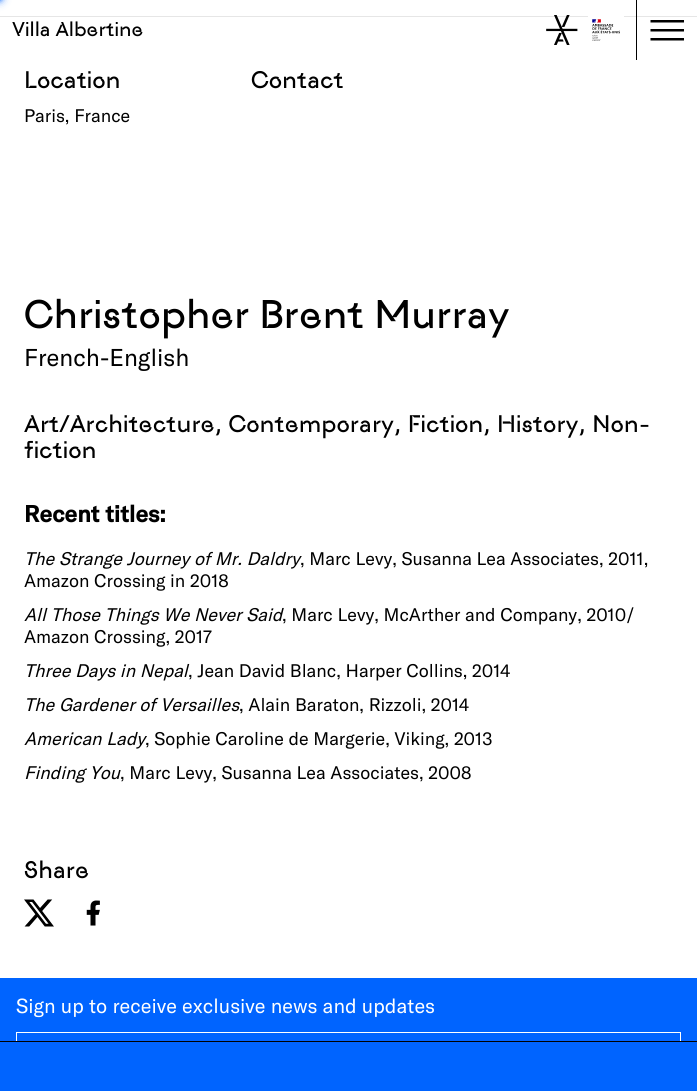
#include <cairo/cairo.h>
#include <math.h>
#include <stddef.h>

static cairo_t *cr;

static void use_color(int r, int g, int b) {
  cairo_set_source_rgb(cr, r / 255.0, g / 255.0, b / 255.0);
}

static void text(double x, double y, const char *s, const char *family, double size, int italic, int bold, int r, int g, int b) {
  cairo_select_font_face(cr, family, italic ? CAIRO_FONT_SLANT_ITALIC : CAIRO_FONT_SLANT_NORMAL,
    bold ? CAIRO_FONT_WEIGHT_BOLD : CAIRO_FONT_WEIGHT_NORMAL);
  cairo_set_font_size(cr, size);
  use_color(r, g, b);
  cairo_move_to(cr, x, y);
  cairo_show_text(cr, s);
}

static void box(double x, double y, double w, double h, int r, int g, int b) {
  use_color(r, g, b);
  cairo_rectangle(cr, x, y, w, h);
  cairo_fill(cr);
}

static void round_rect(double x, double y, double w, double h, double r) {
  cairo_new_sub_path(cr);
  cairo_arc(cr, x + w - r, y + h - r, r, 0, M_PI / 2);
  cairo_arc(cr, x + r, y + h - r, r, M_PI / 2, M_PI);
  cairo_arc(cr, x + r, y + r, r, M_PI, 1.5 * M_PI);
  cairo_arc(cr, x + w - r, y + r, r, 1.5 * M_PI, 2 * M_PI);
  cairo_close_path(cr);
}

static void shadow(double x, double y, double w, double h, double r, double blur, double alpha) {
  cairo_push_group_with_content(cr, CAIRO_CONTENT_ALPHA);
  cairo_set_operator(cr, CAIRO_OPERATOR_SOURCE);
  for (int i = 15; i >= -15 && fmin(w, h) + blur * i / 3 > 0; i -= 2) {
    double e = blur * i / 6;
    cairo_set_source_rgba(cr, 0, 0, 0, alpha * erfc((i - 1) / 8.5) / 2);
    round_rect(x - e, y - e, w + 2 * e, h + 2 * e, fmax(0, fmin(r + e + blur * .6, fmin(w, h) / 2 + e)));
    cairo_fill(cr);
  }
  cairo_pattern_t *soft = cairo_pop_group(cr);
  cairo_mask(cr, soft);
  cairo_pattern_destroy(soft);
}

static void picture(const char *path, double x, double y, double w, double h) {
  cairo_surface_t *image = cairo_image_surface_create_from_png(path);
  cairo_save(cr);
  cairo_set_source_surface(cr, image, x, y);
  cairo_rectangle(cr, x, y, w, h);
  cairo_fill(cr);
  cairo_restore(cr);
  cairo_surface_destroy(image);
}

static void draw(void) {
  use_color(255, 255, 255);
  cairo_paint(cr);
  use_color(0, 100, 255);
  shadow(-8, -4, 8, 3, 0, 2.5, 1);
  shadow(-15, -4, 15, 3, 0, 5, 1);
  box(0, 16, 697, 1, 230, 230, 230);
  box(636, 0, 1, 60, 0, 0, 0);
  picture("img_01.png", 546, 15, 32, 30);
  picture("img_02.png", 588, 16, 36, 25);
  cairo_set_fill_rule(cr, CAIRO_FILL_RULE_EVEN_ODD);
  cairo_new_path(cr);
  cairo_move_to(cr, 684, 38);
  cairo_line_to(cr, 684, 40.5);
  cairo_line_to(cr, 650.5, 40.5);
  cairo_line_to(cr, 650.5, 38);
  cairo_close_path(cr);
  cairo_move_to(cr, 684, 29);
  cairo_line_to(cr, 684, 31.5);
  cairo_line_to(cr, 650.5, 31.5);
  cairo_line_to(cr, 650.5, 29);
  cairo_close_path(cr);
  cairo_move_to(cr, 684, 20);
  cairo_line_to(cr, 684, 22.5);
  cairo_line_to(cr, 650.5, 22.5);
  cairo_line_to(cr, 650.5, 20);
  cairo_close_path(cr);
  cairo_fill(cr);
  picture("img_03.png", 24, 899, 30, 28);
  picture("img_04.png", 86, 900, 14, 26);
  box(0, 978, 697, 63, 0, 100, 255);
  cairo_rectangle(cr, 16.5, 1032.5, 664, 47);
  use_color(255, 255, 255);
  cairo_set_line_width(cr, 1);
  cairo_stroke(cr);
  box(0, 1042, 697, 49, 0, 100, 255);
  box(0, 1041, 697, 1, 0, 0, 0);
  text(12, 36, "Villa Albertine", "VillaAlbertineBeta", 20, 0, 0, 0, 0, 0);
  text(24, 88, "Location", "VillaAlbertineBeta", 24, 0, 0, 0, 0, 0);
  text(24, 122, "Paris, France", "GT America", 18, 0, 0, 0, 0, 0);
  text(251, 88, "Contact", "VillaAlbertineBeta", 24, 0, 0, 0, 0, 0);
  text(24, 328, "Christopher Brent Murray", "VillaAlbertineBeta", 40, 0, 0, 0, 0, 0);
  text(24, 366, "French-English", "GT America", 24, 0, 0, 0, 0, 0);
  text(24, 432, "Art/Architecture, Contemporary, Fiction, History, Non-", "VillaAlbertineBeta", 24, 0, 0, 0, 0, 0);
  text(24, 458, "fiction", "VillaAlbertineBeta", 24, 0, 0, 0, 0, 0);
  text(24, 522, "Recent titles:", "GT America", 23, 0, 1, 0, 0, 0);
  text(24, 565, "The Strange Journey of Mr. Daldry", "GT America", 18, 1, 0, 0, 0, 0);
  text(300, 565, ", Marc Levy, Susanna Lea Associates, 2011,", "GT America", 18, 0, 0, 0, 0, 0);
  text(24, 587, "Amazon Crossing in 2018", "GT America", 18, 0, 0, 0, 0, 0);
  text(24, 621, "All Those Things We Never Said", "GT America", 18, 1, 0, 0, 0, 0);
  text(282, 621, ", Marc Levy, McArther and Company, 2010/", "GT America", 18, 0, 0, 0, 0, 0);
  text(24, 643, "Amazon Crossing, 2017", "GT America", 18, 0, 0, 0, 0, 0);
  text(24, 677, "Three Days in Nepal", "GT America", 18, 1, 0, 0, 0, 0);
  text(188, 677, ", Jean David Blanc, Harper Collins, 2014", "GT America", 18, 0, 0, 0, 0, 0);
  text(24, 711, "The Gardener of Versailles", "GT America", 18, 1, 0, 0, 0, 0);
  text(239, 711, ", Alain Baraton, Rizzoli, 2014", "GT America", 18, 0, 0, 0, 0, 0);
  text(24, 745, "American Lady", "GT America", 18, 1, 0, 0, 0, 0);
  text(145, 745, ", Sophie Caroline de Margerie, Viking, 2013", "GT America", 18, 0, 0, 0, 0, 0);
  text(24, 779, "Finding You", "GT America", 18, 1, 0, 0, 0, 0);
  text(120, 779, ", Marc Levy, Susanna Lea Associates, 2008", "GT America", 18, 0, 0, 0, 0, 0);
  text(24, 878, "Share", "VillaAlbertineBeta", 24, 0, 0, 0, 0, 0);
  text(16, 1013, "Sign up to receive exclusive news and updates", "GT America", 20, 0, 0, 255, 255, 255);
}

int main(void) {
  cairo_surface_t *surface = cairo_image_surface_create(CAIRO_FORMAT_RGB24, 697, 1091);
  cr = cairo_create(surface);
  cairo_font_options_t *options = cairo_font_options_create();
  cairo_font_options_set_hint_metrics(options, CAIRO_HINT_METRICS_OFF);
  cairo_font_options_set_hint_style(options, CAIRO_HINT_STYLE_NONE);
  cairo_set_font_options(cr, options);
  cairo_set_miter_limit(cr, 4);
  draw();
  cairo_surface_write_to_png(surface, "out.png");
  cairo_font_options_destroy(options);
  cairo_destroy(cr);
  cairo_surface_destroy(surface);
  return 0;
}
